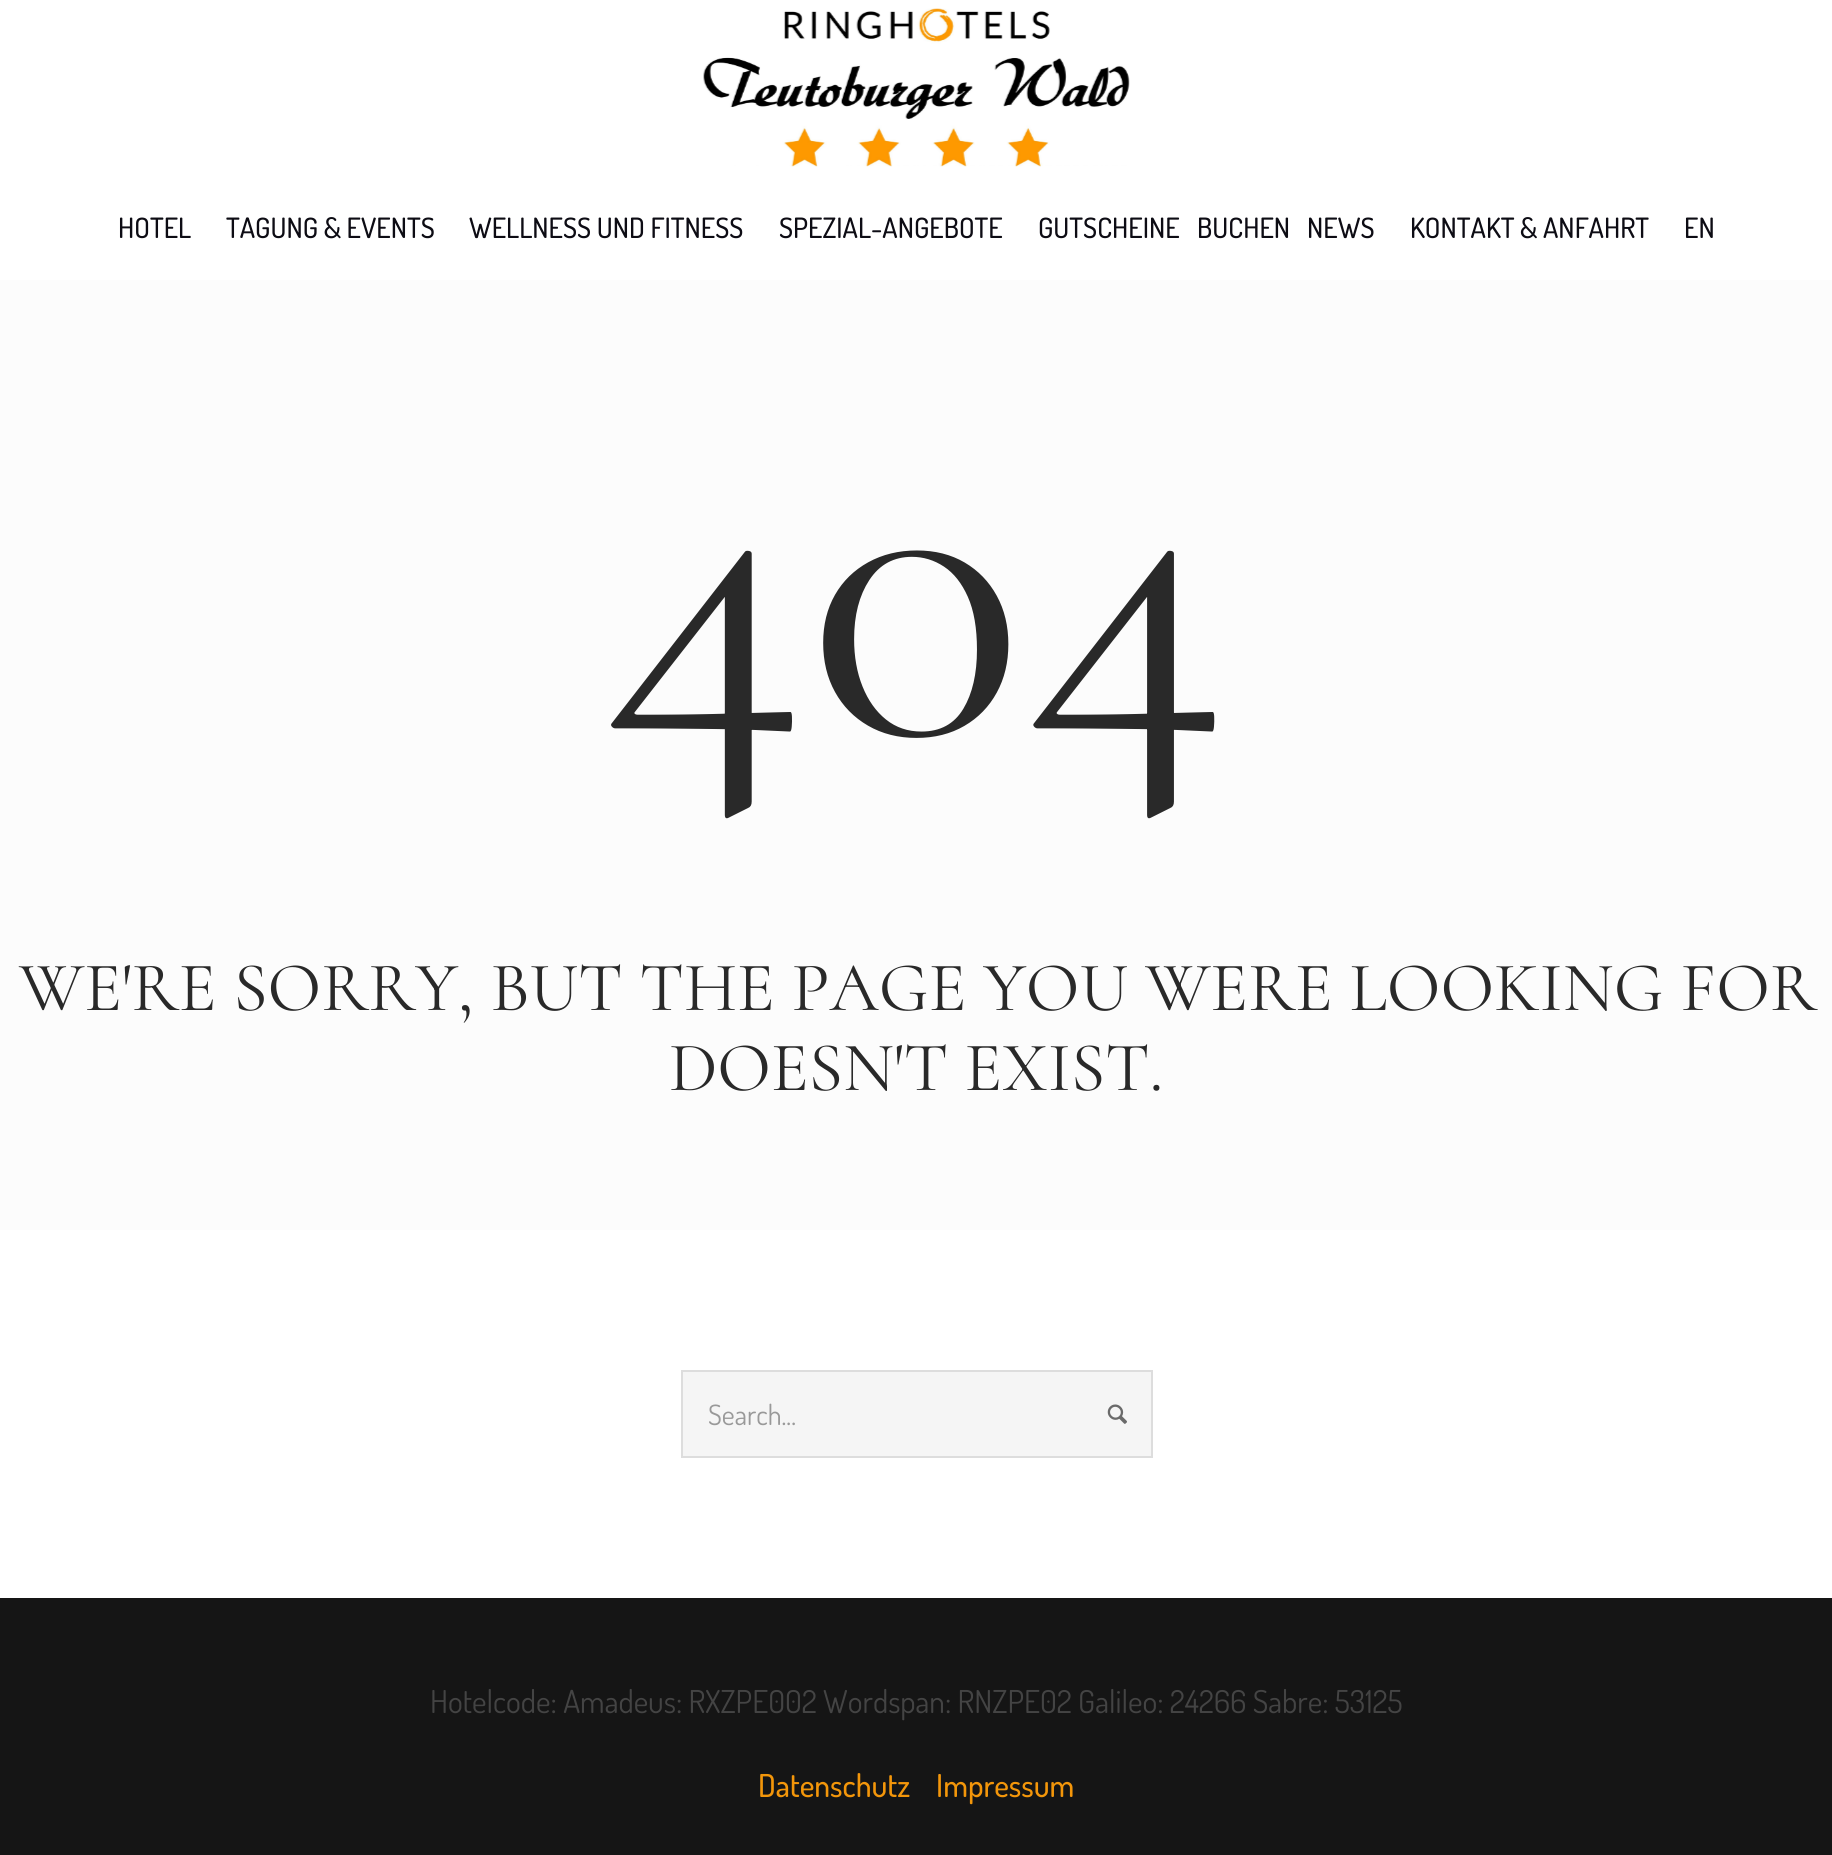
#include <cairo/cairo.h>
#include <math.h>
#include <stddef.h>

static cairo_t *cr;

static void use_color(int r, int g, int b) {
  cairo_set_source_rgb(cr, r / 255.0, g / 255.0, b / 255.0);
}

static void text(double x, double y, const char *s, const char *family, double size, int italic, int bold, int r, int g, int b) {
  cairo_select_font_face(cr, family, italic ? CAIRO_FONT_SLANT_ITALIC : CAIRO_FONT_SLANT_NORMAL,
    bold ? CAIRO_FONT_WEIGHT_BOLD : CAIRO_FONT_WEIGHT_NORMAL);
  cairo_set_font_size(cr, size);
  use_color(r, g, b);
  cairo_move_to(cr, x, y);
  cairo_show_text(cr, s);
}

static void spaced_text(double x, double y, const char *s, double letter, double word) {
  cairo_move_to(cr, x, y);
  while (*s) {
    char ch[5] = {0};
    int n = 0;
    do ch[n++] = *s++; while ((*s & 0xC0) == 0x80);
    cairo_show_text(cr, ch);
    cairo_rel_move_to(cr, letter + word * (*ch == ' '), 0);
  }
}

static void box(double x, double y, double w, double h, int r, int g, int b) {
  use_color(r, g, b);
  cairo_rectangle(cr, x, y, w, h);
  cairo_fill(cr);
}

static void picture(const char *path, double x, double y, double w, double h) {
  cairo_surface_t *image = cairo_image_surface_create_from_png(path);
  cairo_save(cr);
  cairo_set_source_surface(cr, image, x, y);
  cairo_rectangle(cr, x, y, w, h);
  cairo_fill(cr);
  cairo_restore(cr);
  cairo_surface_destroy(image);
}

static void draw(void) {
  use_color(255, 255, 255);
  cairo_paint(cr);
  picture("img_01.png", 703, 8, 427, 159);
  box(0, 280, 1832, 950, 252, 252, 252);
  use_color(245, 245, 245);
  cairo_rectangle(cr, 682, 1371, 470, 86);
  cairo_fill_preserve(cr);
  use_color(221, 221, 221);
  cairo_stroke(cr);
  picture("img_02.png", 1107, 1404, 20, 20);
  box(0, 1598, 1832, 257, 21, 21, 21);
  text(118, 238, "HOTEL", "Dosis Medium", 28, 0, 0, 13, 12, 20);
  text(226, 238, "TAGUNG & EVENTS", "Dosis Medium", 28, 0, 0, 13, 12, 20);
  text(469, 238, "WELLNESS UND FITNESS", "Dosis Medium", 28, 0, 0, 13, 12, 20);
  text(779, 238, "SPEZIAL-ANGEBOTE", "Dosis Medium", 28, 0, 0, 13, 12, 20);
  text(1038, 238, "GUTSCHEINE", "Dosis Medium", 28, 0, 0, 13, 12, 20);
  text(1197, 238, "BUCHEN", "Dosis Medium", 28, 0, 0, 13, 12, 20);
  text(1307, 238, "NEWS", "Dosis Medium", 28, 0, 0, 13, 12, 20);
  text(1410, 238, "KONTAKT & ANFAHRT", "Dosis Medium", 28, 0, 0, 13, 12, 20);
  text(1684, 238, "EN", "Dosis Medium", 28, 0, 0, 13, 12, 20);
  text(602, 732, "404", "Cormorant Light", 455, 0, 0, 41, 41, 41);
  cairo_set_font_size(cr, 70);
  spaced_text(19, 1010, "WE'RE SORRY, BUT THE PAGE YOU WERE LOOKING FOR", 0, 0.5);
  text(669, 1090, "DOESN'T EXIST.", "Cormorant Light", 70, 0, 0, 41, 41, 41);
  text(708, 1425, "Search...", "Dosis", 28, 0, 0, 153, 153, 153);
  text(430, 1713, "Hotelcode: Amadeus: RXZPE002 Wordspan: RNZPE02 Galileo: 24266 Sabre: 53125", "Dosis", 31.5, 0, 0, 68, 68, 68);
  text(758, 1797, "Datenschutz", "Dosis Medium", 31.5, 0, 0, 243, 150, 10);
  text(936, 1797, "Impressum", "Dosis Medium", 31.5, 0, 0, 243, 150, 10);
}

int main(void) {
  cairo_surface_t *surface = cairo_image_surface_create(CAIRO_FORMAT_RGB24, 1832, 1855);
  cr = cairo_create(surface);
  cairo_font_options_t *options = cairo_font_options_create();
  cairo_font_options_set_hint_metrics(options, CAIRO_HINT_METRICS_OFF);
  cairo_font_options_set_hint_style(options, CAIRO_HINT_STYLE_NONE);
  cairo_set_font_options(cr, options);
  cairo_set_miter_limit(cr, 4);
  draw();
  cairo_surface_write_to_png(surface, "out.png");
  cairo_font_options_destroy(options);
  cairo_destroy(cr);
  cairo_surface_destroy(surface);
  return 0;
}
